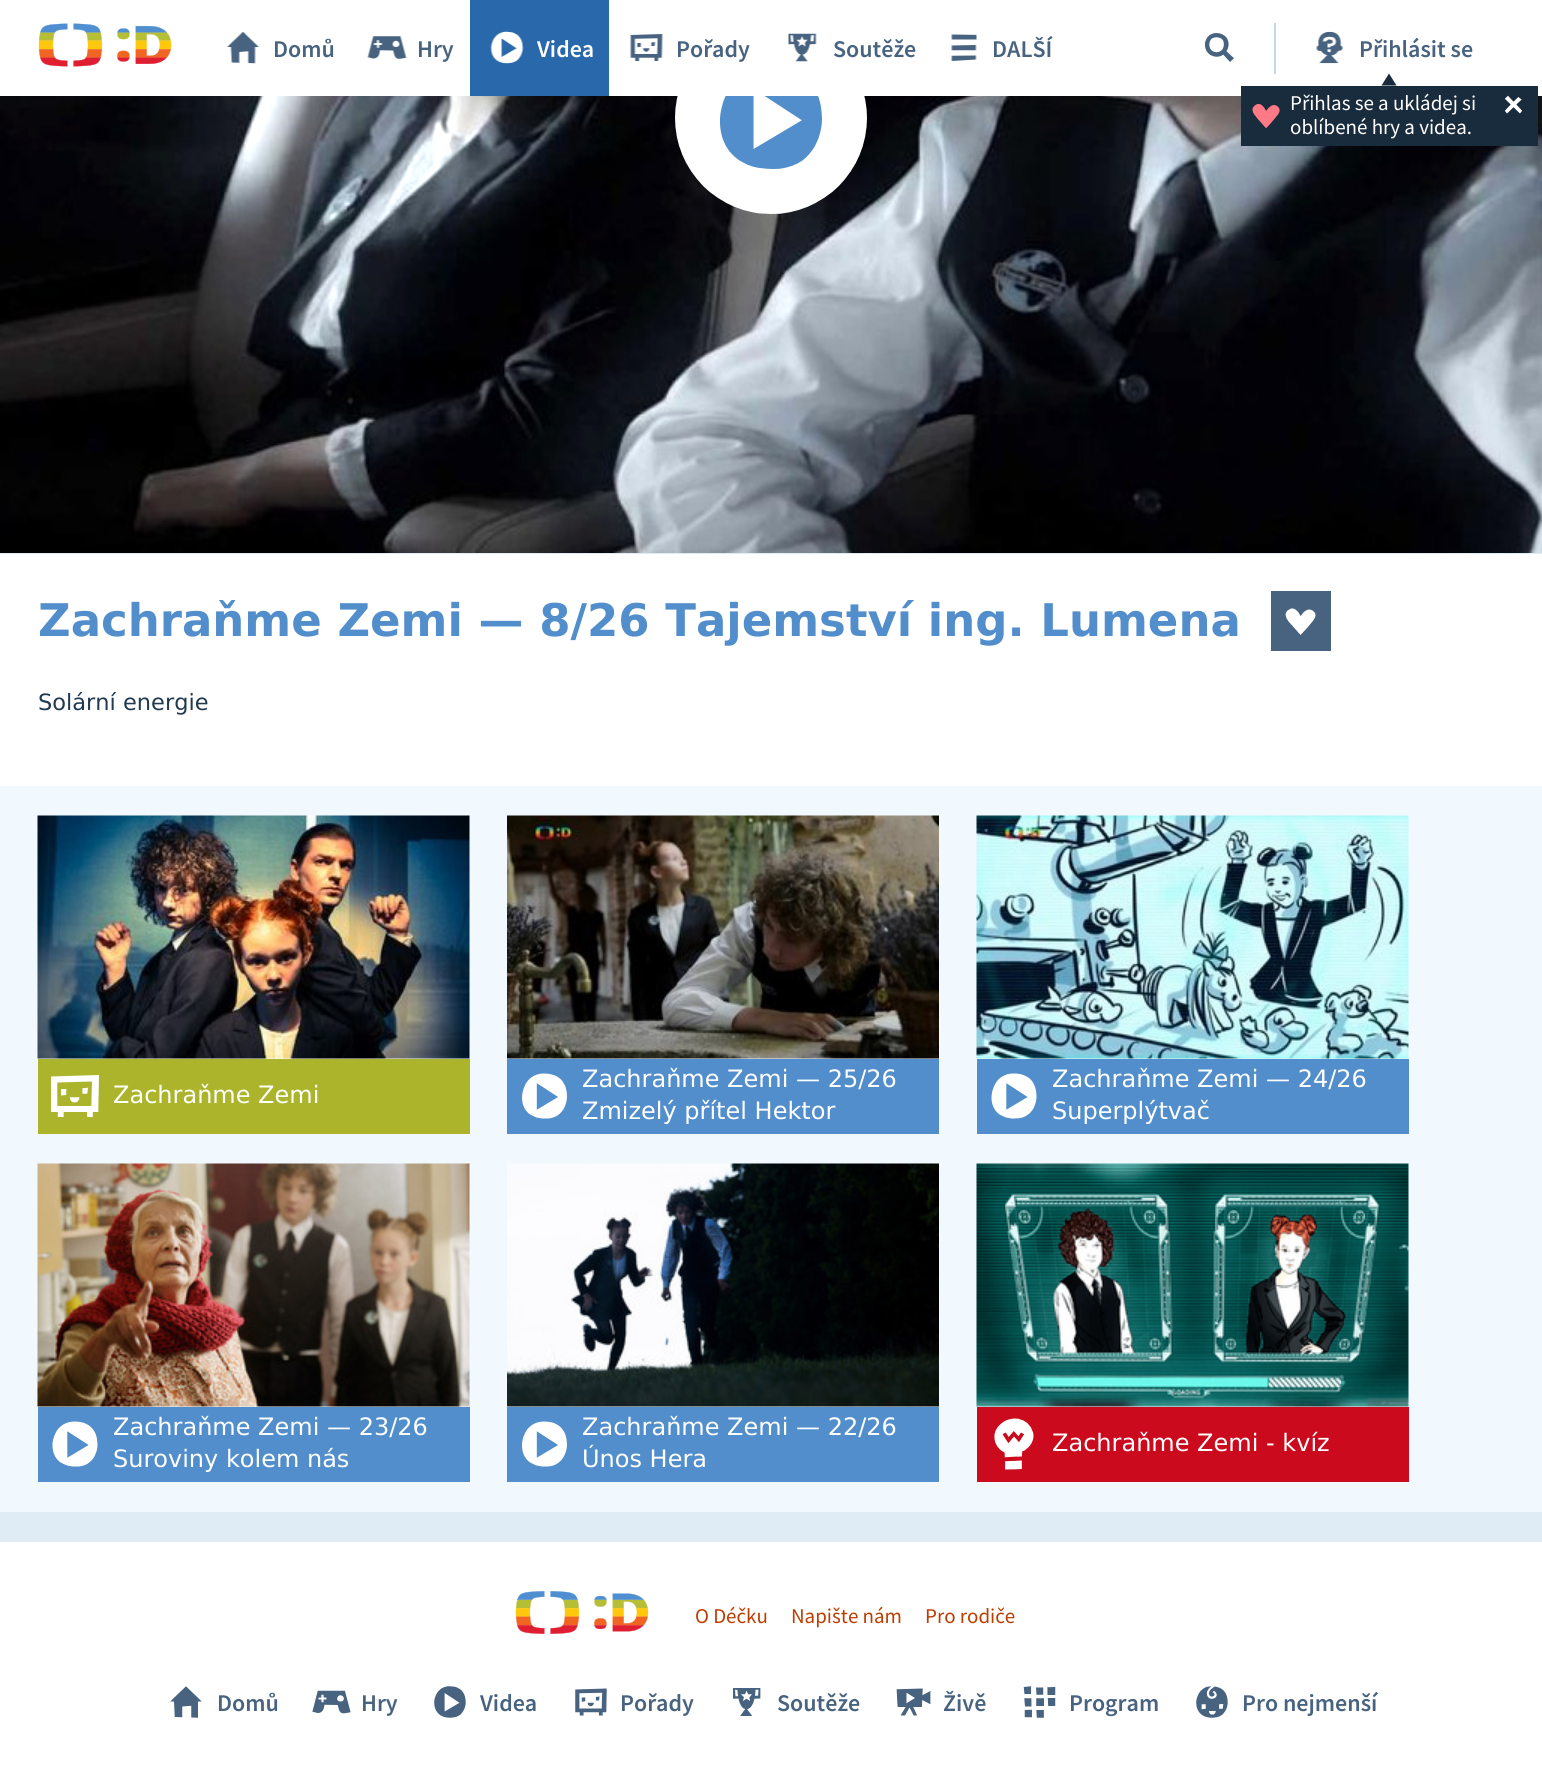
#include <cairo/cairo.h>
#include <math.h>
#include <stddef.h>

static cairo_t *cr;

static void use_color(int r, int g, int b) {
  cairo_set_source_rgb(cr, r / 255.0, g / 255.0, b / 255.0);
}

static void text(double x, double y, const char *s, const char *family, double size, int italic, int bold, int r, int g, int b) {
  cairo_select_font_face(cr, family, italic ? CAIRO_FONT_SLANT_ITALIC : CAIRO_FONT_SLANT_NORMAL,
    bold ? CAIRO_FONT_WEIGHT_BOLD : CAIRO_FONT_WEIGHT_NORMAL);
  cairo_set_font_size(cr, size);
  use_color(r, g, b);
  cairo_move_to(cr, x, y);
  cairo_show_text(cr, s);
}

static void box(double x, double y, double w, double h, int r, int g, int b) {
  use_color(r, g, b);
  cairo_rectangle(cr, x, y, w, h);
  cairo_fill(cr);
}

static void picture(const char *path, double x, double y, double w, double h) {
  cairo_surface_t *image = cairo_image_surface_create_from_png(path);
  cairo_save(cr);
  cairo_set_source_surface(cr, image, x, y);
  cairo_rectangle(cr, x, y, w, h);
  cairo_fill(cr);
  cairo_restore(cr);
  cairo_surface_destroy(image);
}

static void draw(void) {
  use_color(224, 236, 245);
  cairo_paint(cr);
  box(0, 0, 1542, 96, 255, 255, 255);
  picture("img_01.png", 38, 23, 134, 44);
  picture("img_02.png", 227, 31, 32, 33);
  picture("img_03.png", 367, 36, 40, 23);
  box(470, 0, 139, 96, 41, 105, 171);
  picture("img_04.png", 490, 31, 34, 33);
  picture("img_05.png", 630, 34, 33, 27);
  picture("img_06.png", 788, 33, 29, 29);
  picture("img_07.png", 951, 34, 26, 27);
  picture("img_08.png", 1204, 33, 30, 29);
  box(1274, 23, 2, 51, 195, 215, 230);
  picture("img_09.png", 1316, 31, 27, 33);
  picture("img_12.png", 0, 96, 1542, 457);
  box(1241, 86, 297, 60, 25, 44, 61);
  cairo_new_path(cr);
  cairo_move_to(cr, 1396.5, 85.5);
  cairo_line_to(cr, 1381.5, 85.5);
  cairo_line_to(cr, 1389, 73.5);
  cairo_close_path(cr);
  cairo_fill(cr);
  picture("img_10.png", 1252, 104, 28, 25);
  picture("img_11.png", 1504, 95, 19, 19);
  picture("img_13.png", 675, 96, 192, 118);
  box(0, 554, 1542, 232, 255, 255, 255);
  box(1271, 591, 60, 60, 72, 99, 128);
  picture("img_14.png", 1285, 608, 31, 27);
  box(0, 786, 1542, 726, 241, 248, 254);
  picture("img_15.png", 37, 815, 433, 244);
  box(38, 1059, 432, 75, 171, 180, 42);
  picture("img_16.png", 51, 1075, 48, 42);
  picture("img_17.png", 507, 815, 432, 244);
  box(507, 1059, 432, 75, 81, 142, 203);
  picture("img_18.png", 522, 1073, 45, 46);
  picture("img_19.png", 976, 815, 433, 244);
  box(977, 1059, 432, 75, 81, 142, 203);
  picture("img_20.png", 991, 1073, 46, 46);
  picture("img_21.png", 37, 1163, 433, 244);
  box(38, 1407, 432, 75, 81, 142, 203);
  picture("img_22.png", 52, 1421, 46, 46);
  picture("img_23.png", 507, 1163, 432, 244);
  box(507, 1407, 432, 75, 81, 142, 203);
  picture("img_24.png", 522, 1421, 45, 46);
  picture("img_25.png", 976, 1163, 433, 244);
  box(977, 1407, 432, 75, 203, 10, 29);
  picture("img_26.png", 994, 1418, 40, 52);
  box(0, 1542, 1542, 239, 255, 255, 255);
  picture("img_27.png", 515, 1591, 134, 43);
  picture("img_28.png", 170, 1686, 32, 32);
  picture("img_29.png", 312, 1690, 39, 24);
  picture("img_30.png", 434, 1686, 32, 32);
  picture("img_31.png", 575, 1688, 32, 28);
  picture("img_32.png", 733, 1688, 28, 28);
  picture("img_33.png", 896, 1688, 35, 28);
  picture("img_34.png", 1023, 1686, 33, 32);
  picture("img_35.png", 1196, 1686, 32, 32);
  text(273, 57, "Domů", "Source Sans Pro SemiBold", 24, 0, 0, 72, 99, 128);
  text(417, 57, "Hry", "Source Sans Pro SemiBold", 24, 0, 0, 72, 99, 128);
  text(537, 57, "Videa", "Source Sans Pro SemiBold", 24, 0, 0, 255, 255, 255);
  text(676, 57, "Pořady", "Source Sans Pro SemiBold", 24, 0, 0, 72, 99, 128);
  text(833, 57, "Soutěže", "Source Sans Pro SemiBold", 24, 0, 0, 72, 99, 128);
  text(992, 57, "DALŠÍ", "Source Sans Pro SemiBold", 24, 0, 0, 72, 99, 128);
  text(1359, 57, "Přihlásit se", "Source Sans Pro SemiBold", 24, 0, 0, 72, 99, 128);
  text(1290, 110, "Přihlas se a ukládej si", "Source Sans Pro", 21, 0, 0, 255, 255, 255);
  text(1290, 134, "oblíbené hry a videa.", "Source Sans Pro", 21, 0, 0, 255, 255, 255);
  text(38, 636, "Zachraňme Zemi — 8/26 Tajemství ing. Lumena", "DejaVu Sans", 45, 0, 1, 81, 142, 203);
  text(38, 710, "Solární energie", "DejaVu Sans", 22.5, 0, 0, 33, 58, 82);
  text(113, 1103, "Zachraňme Zemi", "DejaVu Sans", 24, 0, 0, 255, 255, 255);
  text(582, 1087, "Zachraňme Zemi — 25/26", "DejaVu Sans", 24, 0, 0, 255, 255, 255);
  text(582, 1119, "Zmizelý přítel Hektor", "DejaVu Sans", 24, 0, 0, 255, 255, 255);
  text(1052, 1087, "Zachraňme Zemi — 24/26", "DejaVu Sans", 24, 0, 0, 255, 255, 255);
  text(1052, 1119, "Superplýtvač", "DejaVu Sans", 24, 0, 0, 255, 255, 255);
  text(113, 1435, "Zachraňme Zemi — 23/26", "DejaVu Sans", 24, 0, 0, 255, 255, 255);
  text(113, 1467, "Suroviny kolem nás", "DejaVu Sans", 24, 0, 0, 255, 255, 255);
  text(582, 1435, "Zachraňme Zemi — 22/26", "DejaVu Sans", 24, 0, 0, 255, 255, 255);
  text(582, 1467, "Únos Hera", "DejaVu Sans", 24, 0, 0, 255, 255, 255);
  text(1052, 1451, "Zachraňme Zemi - kvíz", "DejaVu Sans", 24, 0, 0, 255, 255, 255);
  text(695, 1623, "O Déčku", "Source Sans Pro", 21, 0, 0, 189, 61, 0);
  text(791, 1623, "Napište nám", "Source Sans Pro", 21, 0, 0, 189, 61, 0);
  text(925, 1623, "Pro rodiče", "Source Sans Pro", 21, 0, 0, 189, 61, 0);
  text(217, 1711, "Domů", "Source Sans Pro SemiBold", 24, 0, 0, 72, 99, 128);
  text(361, 1711, "Hry", "Source Sans Pro SemiBold", 24, 0, 0, 72, 99, 128);
  text(480, 1711, "Videa", "Source Sans Pro SemiBold", 24, 0, 0, 72, 99, 128);
  text(620, 1711, "Pořady", "Source Sans Pro SemiBold", 24, 0, 0, 72, 99, 128);
  text(777, 1711, "Soutěže", "Source Sans Pro SemiBold", 24, 0, 0, 72, 99, 128);
  text(943, 1711, "Živě", "Source Sans Pro SemiBold", 24, 0, 0, 72, 99, 128);
  text(1069, 1711, "Program", "Source Sans Pro SemiBold", 24, 0, 0, 72, 99, 128);
  text(1242, 1711, "Pro nejmenší", "Source Sans Pro SemiBold", 24, 0, 0, 72, 99, 128);
}

int main(void) {
  cairo_surface_t *surface = cairo_image_surface_create(CAIRO_FORMAT_RGB24, 1542, 1781);
  cr = cairo_create(surface);
  cairo_font_options_t *options = cairo_font_options_create();
  cairo_font_options_set_hint_metrics(options, CAIRO_HINT_METRICS_OFF);
  cairo_font_options_set_hint_style(options, CAIRO_HINT_STYLE_NONE);
  cairo_set_font_options(cr, options);
  cairo_set_miter_limit(cr, 4);
  draw();
  cairo_surface_write_to_png(surface, "out.png");
  cairo_font_options_destroy(options);
  cairo_destroy(cr);
  cairo_surface_destroy(surface);
  return 0;
}
